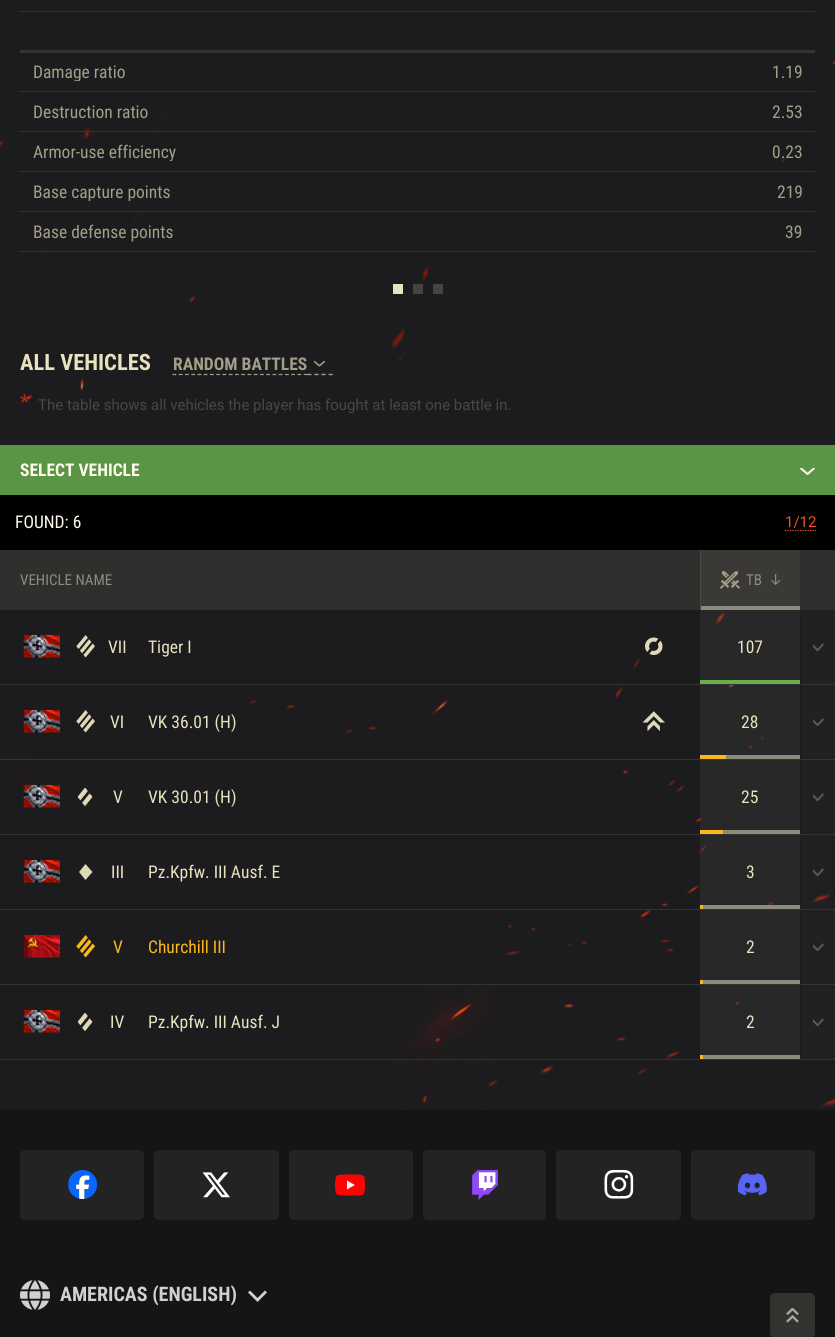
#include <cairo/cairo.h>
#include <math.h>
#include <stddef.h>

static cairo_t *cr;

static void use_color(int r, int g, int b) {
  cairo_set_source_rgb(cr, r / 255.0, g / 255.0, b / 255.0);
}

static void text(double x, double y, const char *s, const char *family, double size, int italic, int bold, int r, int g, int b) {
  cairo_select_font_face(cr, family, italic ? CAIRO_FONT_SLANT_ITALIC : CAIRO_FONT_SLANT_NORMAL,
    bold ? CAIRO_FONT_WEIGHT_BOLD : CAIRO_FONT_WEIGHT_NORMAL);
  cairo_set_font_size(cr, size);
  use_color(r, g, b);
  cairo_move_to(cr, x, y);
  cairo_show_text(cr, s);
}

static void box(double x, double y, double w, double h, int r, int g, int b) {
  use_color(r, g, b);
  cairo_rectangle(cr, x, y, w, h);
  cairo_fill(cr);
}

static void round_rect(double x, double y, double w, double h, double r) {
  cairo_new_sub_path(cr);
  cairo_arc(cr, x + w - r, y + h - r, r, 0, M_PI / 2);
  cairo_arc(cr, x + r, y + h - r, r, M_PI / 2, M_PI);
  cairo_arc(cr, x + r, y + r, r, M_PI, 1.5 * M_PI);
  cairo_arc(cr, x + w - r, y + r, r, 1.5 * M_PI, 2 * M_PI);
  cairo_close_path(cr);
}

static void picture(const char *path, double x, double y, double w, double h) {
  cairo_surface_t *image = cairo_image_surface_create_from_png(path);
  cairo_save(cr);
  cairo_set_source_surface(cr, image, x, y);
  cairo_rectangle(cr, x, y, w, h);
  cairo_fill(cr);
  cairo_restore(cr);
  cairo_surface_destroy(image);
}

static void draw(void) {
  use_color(28, 28, 30);
  cairo_paint(cr);
  picture("img_01.png", 0, 60, 835, 1050);
  box(20, 11, 795, 1, 51, 51, 53);
  box(20, 50, 795, 3, 51, 51, 53);
  box(20, 91, 795, 1, 51, 51, 53);
  box(20, 131, 795, 1, 51, 51, 53);
  box(20, 171, 795, 1, 51, 51, 53);
  box(20, 211, 795, 1, 51, 51, 53);
  box(20, 251, 795, 1, 51, 51, 53);
  box(393, 284, 10, 10, 233, 226, 191);
  box(413, 284, 10, 10, 69, 68, 62);
  box(433, 284, 10, 10, 69, 68, 62);
  cairo_new_path(cr);
  cairo_move_to(cr, 307.5, 374.5);
  cairo_line_to(cr, 332.5, 374.5);
  use_color(162, 158, 135);
  cairo_set_line_width(cr, 1.2);
  cairo_set_dash(cr, (double[]){3.75, 3.34}, 2, 0);
  cairo_stroke(cr);
  cairo_new_path(cr);
  cairo_move_to(cr, 172.5, 374.5);
  cairo_line_to(cr, 307.5, 374.5);
  cairo_set_dash(cr, (double[]){3.75, 2.5}, 2, 0);
  cairo_stroke(cr);
  cairo_new_path(cr);
  cairo_move_to(cr, 307.5, 374.5);
  cairo_line_to(cr, 332.5, 374.5);
  cairo_set_dash(cr, (double[]){3.75, 3.34}, 2, 0);
  cairo_stroke(cr);
  picture("img_02.png", 314, 361, 11, 6);
  box(0, 445, 835, 50, 90, 148, 69);
  picture("img_03.png", 800, 468, 15, 7);
  box(0, 495, 835, 55, 0, 0, 0);
  cairo_new_path(cr);
  cairo_move_to(cr, 785, 530.5);
  cairo_line_to(cr, 816, 530.5);
  use_color(242, 83, 34);
  cairo_set_dash(cr, (double[]){1.25, 1.25}, 2, 0);
  cairo_stroke(cr);
  box(0, 550, 835, 60, 48, 47, 45);
  box(701, 550, 99, 56, 58, 57, 54);
  box(701, 606, 99, 4, 140, 140, 124);
  box(700, 550, 1, 60, 74, 74, 68);
  picture("img_04.png", 720, 571, 20, 18);
  picture("img_05.png", 771, 574, 10, 11);
  box(0, 684, 835, 1, 51, 51, 53);
  picture("img_06.png", 23, 635, 37, 23);
  picture("img_07.png", 76, 635, 19, 23);
  picture("img_08.png", 645, 637, 18, 18);
  cairo_set_source_rgba(cr, 0.549, 0.549, 0.486, 0.11);
  cairo_rectangle(cr, 700, 610, 100, 70);
  cairo_fill(cr);
  box(700, 680, 100, 4, 102, 175, 76);
  box(801, 610, 34, 74, 33, 33, 35);
  picture("img_09.png", 813, 643, 11, 8);
  box(0, 759, 835, 1, 51, 51, 53);
  picture("img_06.png", 23, 710, 37, 23);
  picture("img_07.png", 76, 710, 19, 23);
  picture("img_10.png", 643, 711, 22, 21);
  cairo_set_source_rgba(cr, 0.549, 0.549, 0.486, 0.11);
  cairo_rectangle(cr, 700, 685, 100, 70);
  cairo_fill(cr);
  box(726, 755, 74, 4, 140, 140, 124);
  box(700, 755, 26, 4, 250, 184, 27);
  box(801, 685, 34, 74, 33, 33, 35);
  picture("img_09.png", 813, 718, 11, 8);
  box(0, 834, 835, 1, 51, 51, 53);
  picture("img_06.png", 23, 785, 37, 23);
  picture("img_11.png", 78, 788, 15, 18);
  cairo_set_source_rgba(cr, 0.549, 0.549, 0.486, 0.11);
  cairo_rectangle(cr, 700, 760, 100, 70);
  cairo_fill(cr);
  box(723, 830, 77, 4, 140, 140, 124);
  box(700, 830, 23, 4, 250, 184, 27);
  box(801, 760, 34, 74, 33, 33, 35);
  picture("img_09.png", 813, 793, 11, 8);
  box(0, 909, 835, 1, 51, 51, 53);
  picture("img_06.png", 23, 860, 37, 23);
  use_color(223, 217, 183);
  cairo_set_fill_rule(cr, CAIRO_FILL_RULE_EVEN_ODD);
  cairo_new_path(cr);
  cairo_move_to(cr, 85.5, 864);
  cairo_line_to(cr, 79, 872);
  cairo_line_to(cr, 85.5, 880);
  cairo_line_to(cr, 92.5, 872);
  cairo_close_path(cr);
  cairo_fill(cr);
  cairo_set_source_rgba(cr, 0.549, 0.549, 0.486, 0.11);
  cairo_rectangle(cr, 700, 835, 100, 70);
  cairo_fill(cr);
  box(700, 905, 100, 4, 140, 140, 124);
  box(700, 905, 3, 4, 250, 184, 27);
  cairo_set_source_rgba(cr, 0.2, 0.2, 0.208, 0.2);
  cairo_rectangle(cr, 801, 835, 34, 74);
  cairo_fill(cr);
  picture("img_12.png", 813, 868, 11, 8);
  box(0, 984, 835, 1, 51, 51, 53);
  picture("img_13.png", 23, 935, 37, 23);
  picture("img_14.png", 76, 935, 19, 23);
  cairo_set_source_rgba(cr, 0.549, 0.549, 0.486, 0.11);
  cairo_rectangle(cr, 700, 910, 100, 70);
  cairo_fill(cr);
  box(700, 980, 100, 4, 140, 140, 124);
  box(700, 980, 3, 4, 250, 184, 27);
  box(801, 910, 34, 74, 33, 33, 35);
  picture("img_09.png", 813, 943, 11, 8);
  box(0, 1059, 835, 1, 51, 51, 53);
  picture("img_06.png", 23, 1010, 37, 23);
  picture("img_11.png", 78, 1013, 15, 18);
  cairo_set_source_rgba(cr, 0.549, 0.549, 0.486, 0.11);
  cairo_rectangle(cr, 700, 985, 100, 70);
  cairo_fill(cr);
  box(700, 1055, 100, 4, 140, 140, 124);
  box(700, 1055, 3, 4, 250, 184, 27);
  box(801, 985, 34, 74, 33, 33, 35);
  picture("img_09.png", 813, 1018, 11, 8);
  box(0, 1110, 835, 227, 21, 21, 21);
  use_color(50, 50, 47);
  round_rect(770, 1293, 45, 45, 5);
  cairo_fill(cr);
  picture("img_15.png", 786, 1308, 13, 15);
  use_color(35, 35, 35);
  round_rect(20, 1150, 124, 70, 5);
  cairo_fill(cr);
  picture("img_16.png", 68, 1170, 30, 29);
  round_rect(154, 1150, 125, 70, 5);
  cairo_fill(cr);
  picture("img_17.png", 202, 1172, 28, 26);
  round_rect(289, 1150, 124, 70, 5);
  cairo_fill(cr);
  picture("img_18.png", 335, 1174, 30, 22);
  round_rect(423, 1150, 123, 70, 5);
  cairo_fill(cr);
  picture("img_19.png", 472, 1170, 26, 30);
  round_rect(556, 1150, 125, 70, 5);
  cairo_fill(cr);
  picture("img_20.png", 604, 1170, 30, 29);
  round_rect(691, 1150, 124, 70, 5);
  cairo_fill(cr);
  picture("img_21.png", 738, 1173, 29, 23);
  picture("img_22.png", 20, 1280, 30, 30);
  use_color(208, 208, 208);
  cairo_set_fill_rule(cr, CAIRO_FILL_RULE_WINDING);
  cairo_new_path(cr);
  cairo_move_to(cr, 257.5, 1302);
  cairo_line_to(cr, 267, 1292.5);
  cairo_line_to(cr, 265, 1290.5);
  cairo_line_to(cr, 257.5, 1298);
  cairo_line_to(cr, 250, 1290.5);
  cairo_line_to(cr, 248, 1292.5);
  cairo_close_path(cr);
  cairo_fill(cr);
  cairo_save(cr);
  cairo_rectangle(cr, 33, 61, 727, 20);
  cairo_clip(cr);
  text(33, 78, "Damage ratio", "Roboto Condensed", 17.5, 0, 0, 162, 158, 135);
  cairo_restore(cr);
  text(772, 78, "1.19", "Roboto Condensed", 17.5, 0, 0, 162, 158, 135);
  text(33, 118, "Destruction ratio", "Roboto Condensed", 17.5, 0, 0, 162, 158, 135);
  text(772, 118, "2.53", "Roboto Condensed", 17.5, 0, 0, 162, 158, 135);
  cairo_save(cr);
  cairo_rectangle(cr, 33, 141, 727, 20);
  cairo_clip(cr);
  text(33, 158, "Armor-use efficiency", "Roboto Condensed", 17.5, 0, 0, 162, 158, 135);
  cairo_restore(cr);
  text(772, 158, "0.23", "Roboto Condensed", 17.5, 0, 0, 162, 158, 135);
  cairo_save(cr);
  cairo_rectangle(cr, 33, 181, 731, 20);
  cairo_clip(cr);
  text(33, 198, "Base capture points", "Roboto Condensed", 17.5, 0, 0, 162, 158, 135);
  cairo_restore(cr);
  text(777, 198, "219", "Roboto Condensed", 17.5, 0, 0, 162, 158, 135);
  text(33, 238, "Base defense points", "Roboto Condensed", 17.5, 0, 0, 162, 158, 135);
  text(785, 238, "39", "Roboto Condensed", 17.5, 0, 0, 162, 158, 135);
  text(20, 370, "ALL VEHICLES", "Roboto Condensed", 22.5, 0, 1, 233, 226, 191);
  text(173, 370, "RANDOM BATTLES", "Roboto Condensed", 17.5, 0, 1, 162, 158, 135);
  text(20, 409, "*", "Roboto", 21, 0, 0, 188, 37, 21);
  text(38, 410, "The table shows all vehicles the player has fought at least one battle in.", "Roboto", 15, 0, 0, 71, 71, 71);
  text(20, 476, "SELECT VEHICLE", "Roboto Condensed", 17.5, 0, 1, 255, 251, 237);
  text(15, 528, "FOUND: 6", "Roboto Condensed", 17.5, 0, 0, 255, 251, 237);
  text(785, 527, "1/12", "Roboto", 15, 0, 0, 242, 83, 34);
  text(20, 585, "VEHICLE NAME", "Roboto Condensed", 15, 0, 0, 140, 140, 124);
  text(746, 585, "TB", "Roboto Condensed", 15, 0, 0, 140, 140, 124);
  text(108, 653, "VII", "Roboto Condensed", 17.5, 0, 0, 233, 226, 191);
  text(148, 653, "Tiger I", "Roboto Condensed", 17.5, 0, 0, 233, 226, 191);
  text(737, 653, "107", "Roboto Condensed", 17.5, 0, 0, 233, 226, 191);
  text(110, 728, "VI", "Roboto Condensed", 17.5, 0, 0, 233, 226, 191);
  text(148, 728, "VK 36.01 (H)", "Roboto Condensed", 17.5, 0, 0, 233, 226, 191);
  text(741, 728, "28", "Roboto Condensed", 17.5, 0, 0, 233, 226, 191);
  text(113, 803, "V", "Roboto Condensed", 17.5, 0, 0, 233, 226, 191);
  text(148, 803, "VK 30.01 (H)", "Roboto Condensed", 17.5, 0, 0, 233, 226, 191);
  text(741, 803, "25", "Roboto Condensed", 17.5, 0, 0, 233, 226, 191);
  text(111, 878, "III", "Roboto Condensed", 17.5, 0, 0, 233, 226, 191);
  text(148, 878, "Pz.Kpfw. III Ausf. E", "Roboto Condensed", 17.5, 0, 0, 233, 226, 191);
  text(746, 878, "3", "Roboto Condensed", 17.5, 0, 0, 233, 226, 191);
  text(113, 953, "V", "Roboto Condensed", 17.5, 0, 0, 250, 184, 27);
  text(148, 953, "Churchill III", "Roboto Condensed", 17.5, 0, 0, 250, 184, 27);
  text(746, 953, "2", "Roboto Condensed", 17.5, 0, 0, 233, 226, 191);
  text(110, 1028, "IV", "Roboto Condensed", 17.5, 0, 0, 233, 226, 191);
  text(148, 1028, "Pz.Kpfw. III Ausf. J", "Roboto Condensed", 17.5, 0, 0, 233, 226, 191);
  text(746, 1028, "2", "Roboto Condensed", 17.5, 0, 0, 233, 226, 191);
  text(60, 1301, "AMERICAS (ENGLISH)", "Roboto Condensed", 20, 0, 1, 208, 208, 208);
}

int main(void) {
  cairo_surface_t *surface = cairo_image_surface_create(CAIRO_FORMAT_RGB24, 835, 1337);
  cr = cairo_create(surface);
  cairo_font_options_t *options = cairo_font_options_create();
  cairo_font_options_set_hint_metrics(options, CAIRO_HINT_METRICS_OFF);
  cairo_font_options_set_hint_style(options, CAIRO_HINT_STYLE_NONE);
  cairo_set_font_options(cr, options);
  cairo_set_miter_limit(cr, 4);
  draw();
  cairo_surface_write_to_png(surface, "out.png");
  cairo_font_options_destroy(options);
  cairo_destroy(cr);
  cairo_surface_destroy(surface);
  return 0;
}
